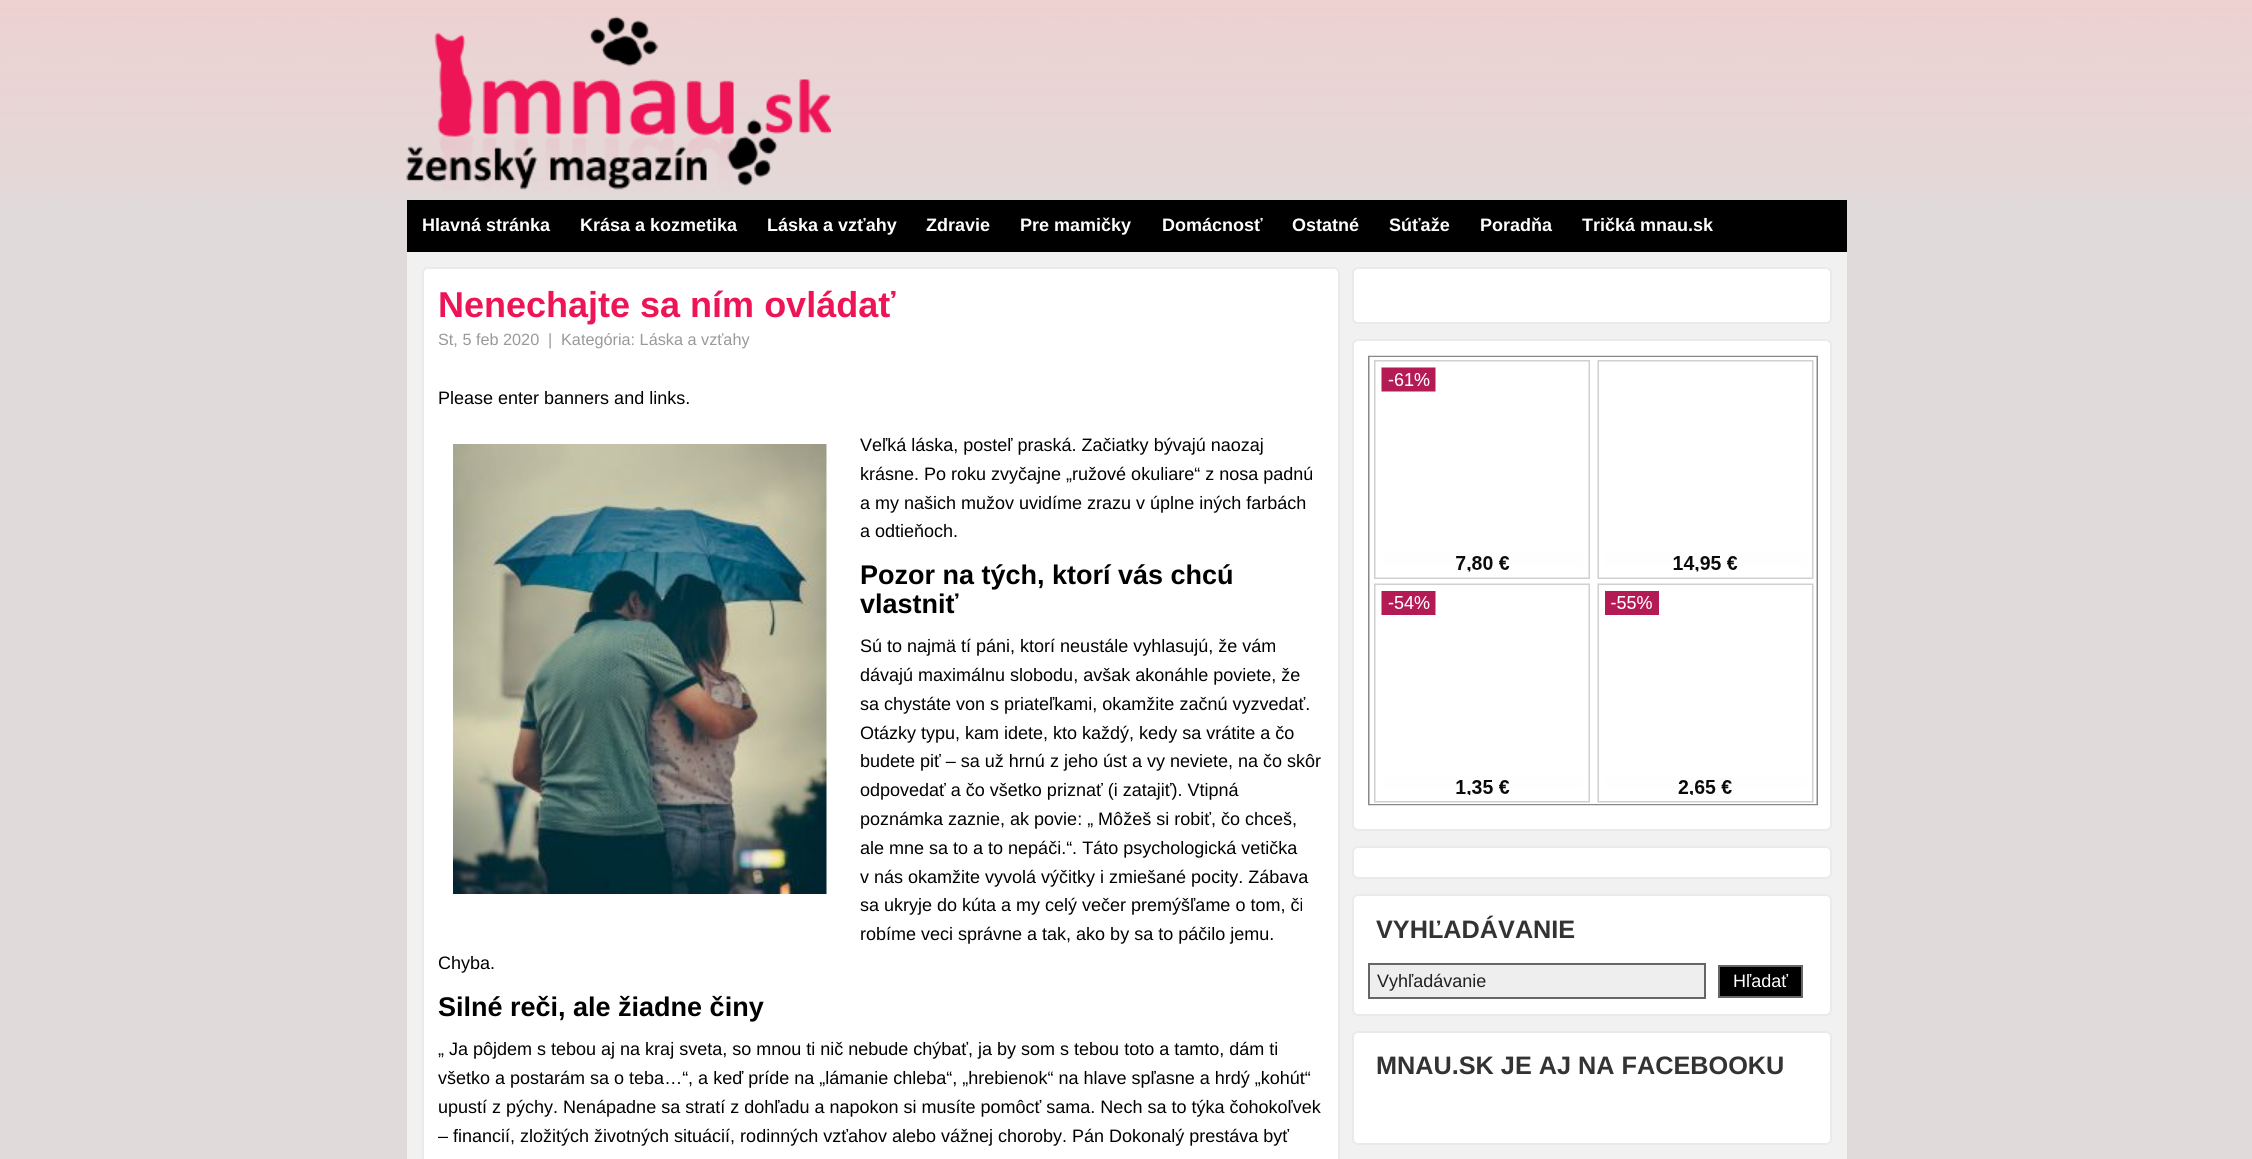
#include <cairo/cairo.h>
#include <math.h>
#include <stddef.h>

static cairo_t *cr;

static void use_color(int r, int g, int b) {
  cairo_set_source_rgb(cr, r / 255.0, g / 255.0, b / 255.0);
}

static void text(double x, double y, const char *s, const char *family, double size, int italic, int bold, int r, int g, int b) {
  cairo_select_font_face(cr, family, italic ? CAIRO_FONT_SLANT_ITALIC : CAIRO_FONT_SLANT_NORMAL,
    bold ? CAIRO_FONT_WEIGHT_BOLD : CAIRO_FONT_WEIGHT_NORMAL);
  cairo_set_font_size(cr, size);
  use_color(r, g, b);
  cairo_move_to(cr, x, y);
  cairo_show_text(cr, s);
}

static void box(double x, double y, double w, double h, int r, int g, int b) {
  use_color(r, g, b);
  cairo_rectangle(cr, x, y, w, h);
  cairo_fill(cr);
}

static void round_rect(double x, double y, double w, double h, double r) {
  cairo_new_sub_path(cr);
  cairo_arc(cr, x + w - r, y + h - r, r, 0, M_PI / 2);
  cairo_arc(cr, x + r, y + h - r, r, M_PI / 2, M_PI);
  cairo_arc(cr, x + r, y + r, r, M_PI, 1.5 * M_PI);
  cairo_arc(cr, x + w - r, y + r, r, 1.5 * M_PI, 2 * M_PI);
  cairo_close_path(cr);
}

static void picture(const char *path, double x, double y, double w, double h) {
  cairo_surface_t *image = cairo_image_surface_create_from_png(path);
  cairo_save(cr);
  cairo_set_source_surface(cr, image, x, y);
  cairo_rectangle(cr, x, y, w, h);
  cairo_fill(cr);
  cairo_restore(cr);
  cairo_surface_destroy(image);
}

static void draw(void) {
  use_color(225, 218, 218);
  cairo_paint(cr);
  picture("img_01.png", 0, 0, 2252, 194);
  picture("img_02.png", 406, 16, 425, 174);
  box(407, 200, 1440, 52, 0, 0, 0);
  box(407, 252, 1440, 907, 241, 241, 241);
  use_color(255, 255, 255);
  round_rect(423, 268, 916, 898, 5);
  cairo_fill_preserve(cr);
  use_color(234, 234, 234);
  cairo_stroke(cr);
  picture("img_03.png", 453, 444, 374, 450);
  use_color(255, 255, 255);
  round_rect(1353, 268, 478, 55, 5);
  cairo_fill_preserve(cr);
  use_color(234, 234, 234);
  cairo_stroke(cr);
  use_color(255, 255, 255);
  round_rect(1353, 340, 478, 490, 5);
  cairo_fill_preserve(cr);
  use_color(234, 234, 234);
  cairo_stroke(cr);
  picture("img_04.png", 1368, 355, 450, 451);
  use_color(255, 255, 255);
  round_rect(1353, 847, 478, 31, 5);
  cairo_fill_preserve(cr);
  use_color(234, 234, 234);
  cairo_stroke(cr);
  use_color(255, 255, 255);
  round_rect(1353, 895, 478, 120, 5);
  cairo_fill_preserve(cr);
  use_color(234, 234, 234);
  cairo_stroke(cr);
  use_color(238, 238, 238);
  cairo_rectangle(cr, 1369, 964, 336, 34);
  cairo_fill_preserve(cr);
  use_color(102, 102, 102);
  cairo_stroke(cr);
  use_color(0, 0, 0);
  cairo_rectangle(cr, 1719, 966, 83, 31);
  cairo_fill_preserve(cr);
  use_color(102, 102, 102);
  cairo_stroke(cr);
  use_color(255, 255, 255);
  round_rect(1353, 1032, 478, 112, 5);
  cairo_fill_preserve(cr);
  use_color(234, 234, 234);
  cairo_stroke(cr);
  text(422, 231, "Hlavná stránka", "Liberation Sans", 18, 0, 1, 255, 255, 255);
  text(580, 231, "Krása a kozmetika", "Liberation Sans", 18, 0, 1, 255, 255, 255);
  text(767, 231, "Láska a vzťahy", "Liberation Sans", 18, 0, 1, 255, 255, 255);
  text(926, 231, "Zdravie", "Liberation Sans", 18, 0, 1, 255, 255, 255);
  text(1020, 231, "Pre mamičky", "Liberation Sans", 18, 0, 1, 255, 255, 255);
  text(1162, 231, "Domácnosť", "Liberation Sans", 18, 0, 1, 255, 255, 255);
  text(1292, 231, "Ostatné", "Liberation Sans", 18, 0, 1, 255, 255, 255);
  text(1389, 231, "Súťaže", "Liberation Sans", 18, 0, 1, 255, 255, 255);
  text(1480, 231, "Poradňa", "Liberation Sans", 18, 0, 1, 255, 255, 255);
  text(1582, 231, "Tričká mnau.sk", "Liberation Sans", 18, 0, 1, 255, 255, 255);
  text(438, 317, "Nenechajte sa ním ovládať", "Liberation Sans", 36, 0, 1, 237, 21, 85);
  text(438, 345, "St, 5 feb 2020", "Liberation Sans", 16.25, 0, 0, 153, 153, 153);
  text(548, 345, "|", "Liberation Sans", 16.25, 0, 0, 153, 153, 153);
  text(561, 345, "Kategória: Láska a vzťahy", "Liberation Sans", 16.25, 0, 0, 153, 153, 153);
  text(438, 404, "Please enter banners and links.", "Liberation Sans", 18, 0, 0, 0, 0, 0);
  text(860, 451, "Veľká láska, posteľ praská. Začiatky bývajú naozaj", "Liberation Sans", 18, 0, 0, 0, 0, 0);
  text(860, 480, "krásne. Po roku zvyčajne „ružové okuliare“ z nosa padnú", "Liberation Sans", 18, 0, 0, 0, 0, 0);
  text(860, 509, "a my našich mužov uvidíme zrazu v úplne iných farbách", "Liberation Sans", 18, 0, 0, 0, 0, 0);
  text(860, 537, "a odtieňoch.", "Liberation Sans", 18, 0, 0, 0, 0, 0);
  text(860, 584, "Pozor na tých, ktorí vás chcú", "Liberation Sans", 27, 0, 1, 0, 0, 0);
  text(860, 613, "vlastniť", "Liberation Sans", 27, 0, 1, 0, 0, 0);
  text(860, 652, "Sú to najmä tí páni, ktorí neustále vyhlasujú, že vám", "Liberation Sans", 18, 0, 0, 0, 0, 0);
  text(860, 681, "dávajú maximálnu slobodu, avšak akonáhle poviete, že", "Liberation Sans", 18, 0, 0, 0, 0, 0);
  text(860, 710, "sa chystáte von s priateľkami, okamžite začnú vyzvedať.", "Liberation Sans", 18, 0, 0, 0, 0, 0);
  text(860, 739, "Otázky typu, kam idete, kto každý, kedy sa vrátite a čo", "Liberation Sans", 18, 0, 0, 0, 0, 0);
  text(860, 767, "budete piť – sa už hrnú z jeho úst a vy neviete, na čo skôr", "Liberation Sans", 18, 0, 0, 0, 0, 0);
  text(860, 796, "odpovedať a čo všetko priznať (i zatajiť). Vtipná", "Liberation Sans", 18, 0, 0, 0, 0, 0);
  text(860, 825, "poznámka zaznie, ak povie: „ Môžeš si robiť, čo chceš,", "Liberation Sans", 18, 0, 0, 0, 0, 0);
  text(860, 854, "ale mne sa to a to nepáči.“. Táto psychologická vetička", "Liberation Sans", 18, 0, 0, 0, 0, 0);
  text(860, 883, "v nás okamžite vyvolá výčitky i zmiešané pocity. Zábava", "Liberation Sans", 18, 0, 0, 0, 0, 0);
  text(860, 911, "sa ukryje do kúta a my celý večer premýšľame o tom, či", "Liberation Sans", 18, 0, 0, 0, 0, 0);
  text(860, 940, "robíme veci správne a tak, ako by sa to páčilo jemu.", "Liberation Sans", 18, 0, 0, 0, 0, 0);
  text(438, 969, "Chyba.", "Liberation Sans", 18, 0, 0, 0, 0, 0);
  text(438, 1016, "Silné reči, ale žiadne činy", "Liberation Sans", 27, 0, 1, 0, 0, 0);
  text(438, 1055, "„ Ja pôjdem s tebou aj na kraj sveta, so mnou ti nič nebude chýbať, ja by som s tebou toto a tamto, dám ti", "Liberation Sans", 18, 0, 0, 0, 0, 0);
  text(438, 1084, "všetko a postarám sa o teba…“, a keď príde na „lámanie chleba“, „hrebienok“ na hlave spľasne a hrdý „kohút“", "Liberation Sans", 18, 0, 0, 0, 0, 0);
  text(438, 1113, "upustí z pýchy. Nenápadne sa stratí z dohľadu a napokon si musíte pomôcť sama. Nech sa to týka čohokoľvek", "Liberation Sans", 18, 0, 0, 0, 0, 0);
  text(438, 1142, "– financií, zložitých životných situácií, rodinných vzťahov alebo vážnej choroby. Pán Dokonalý prestáva byť", "Liberation Sans", 18, 0, 0, 0, 0, 0);
  text(1376, 938, "VYHĽADÁVANIE", "Liberation Sans", 25.25, 0, 1, 51, 51, 51);
  text(1377, 987, "Vyhľadávanie", "Liberation Sans", 18, 0, 0, 32, 32, 32);
  text(1733, 987, "Hľadať", "Liberation Sans", 18, 0, 0, 255, 255, 255);
  text(1376, 1074, "MNAU.SK JE AJ NA FACEBOOKU", "Liberation Sans", 25.25, 0, 1, 51, 51, 51);
}

int main(void) {
  cairo_surface_t *surface = cairo_image_surface_create(CAIRO_FORMAT_RGB24, 2252, 1159);
  cr = cairo_create(surface);
  cairo_font_options_t *options = cairo_font_options_create();
  cairo_font_options_set_hint_metrics(options, CAIRO_HINT_METRICS_OFF);
  cairo_font_options_set_hint_style(options, CAIRO_HINT_STYLE_NONE);
  cairo_set_font_options(cr, options);
  cairo_set_miter_limit(cr, 4);
  draw();
  cairo_surface_write_to_png(surface, "out.png");
  cairo_font_options_destroy(options);
  cairo_destroy(cr);
  cairo_surface_destroy(surface);
  return 0;
}
